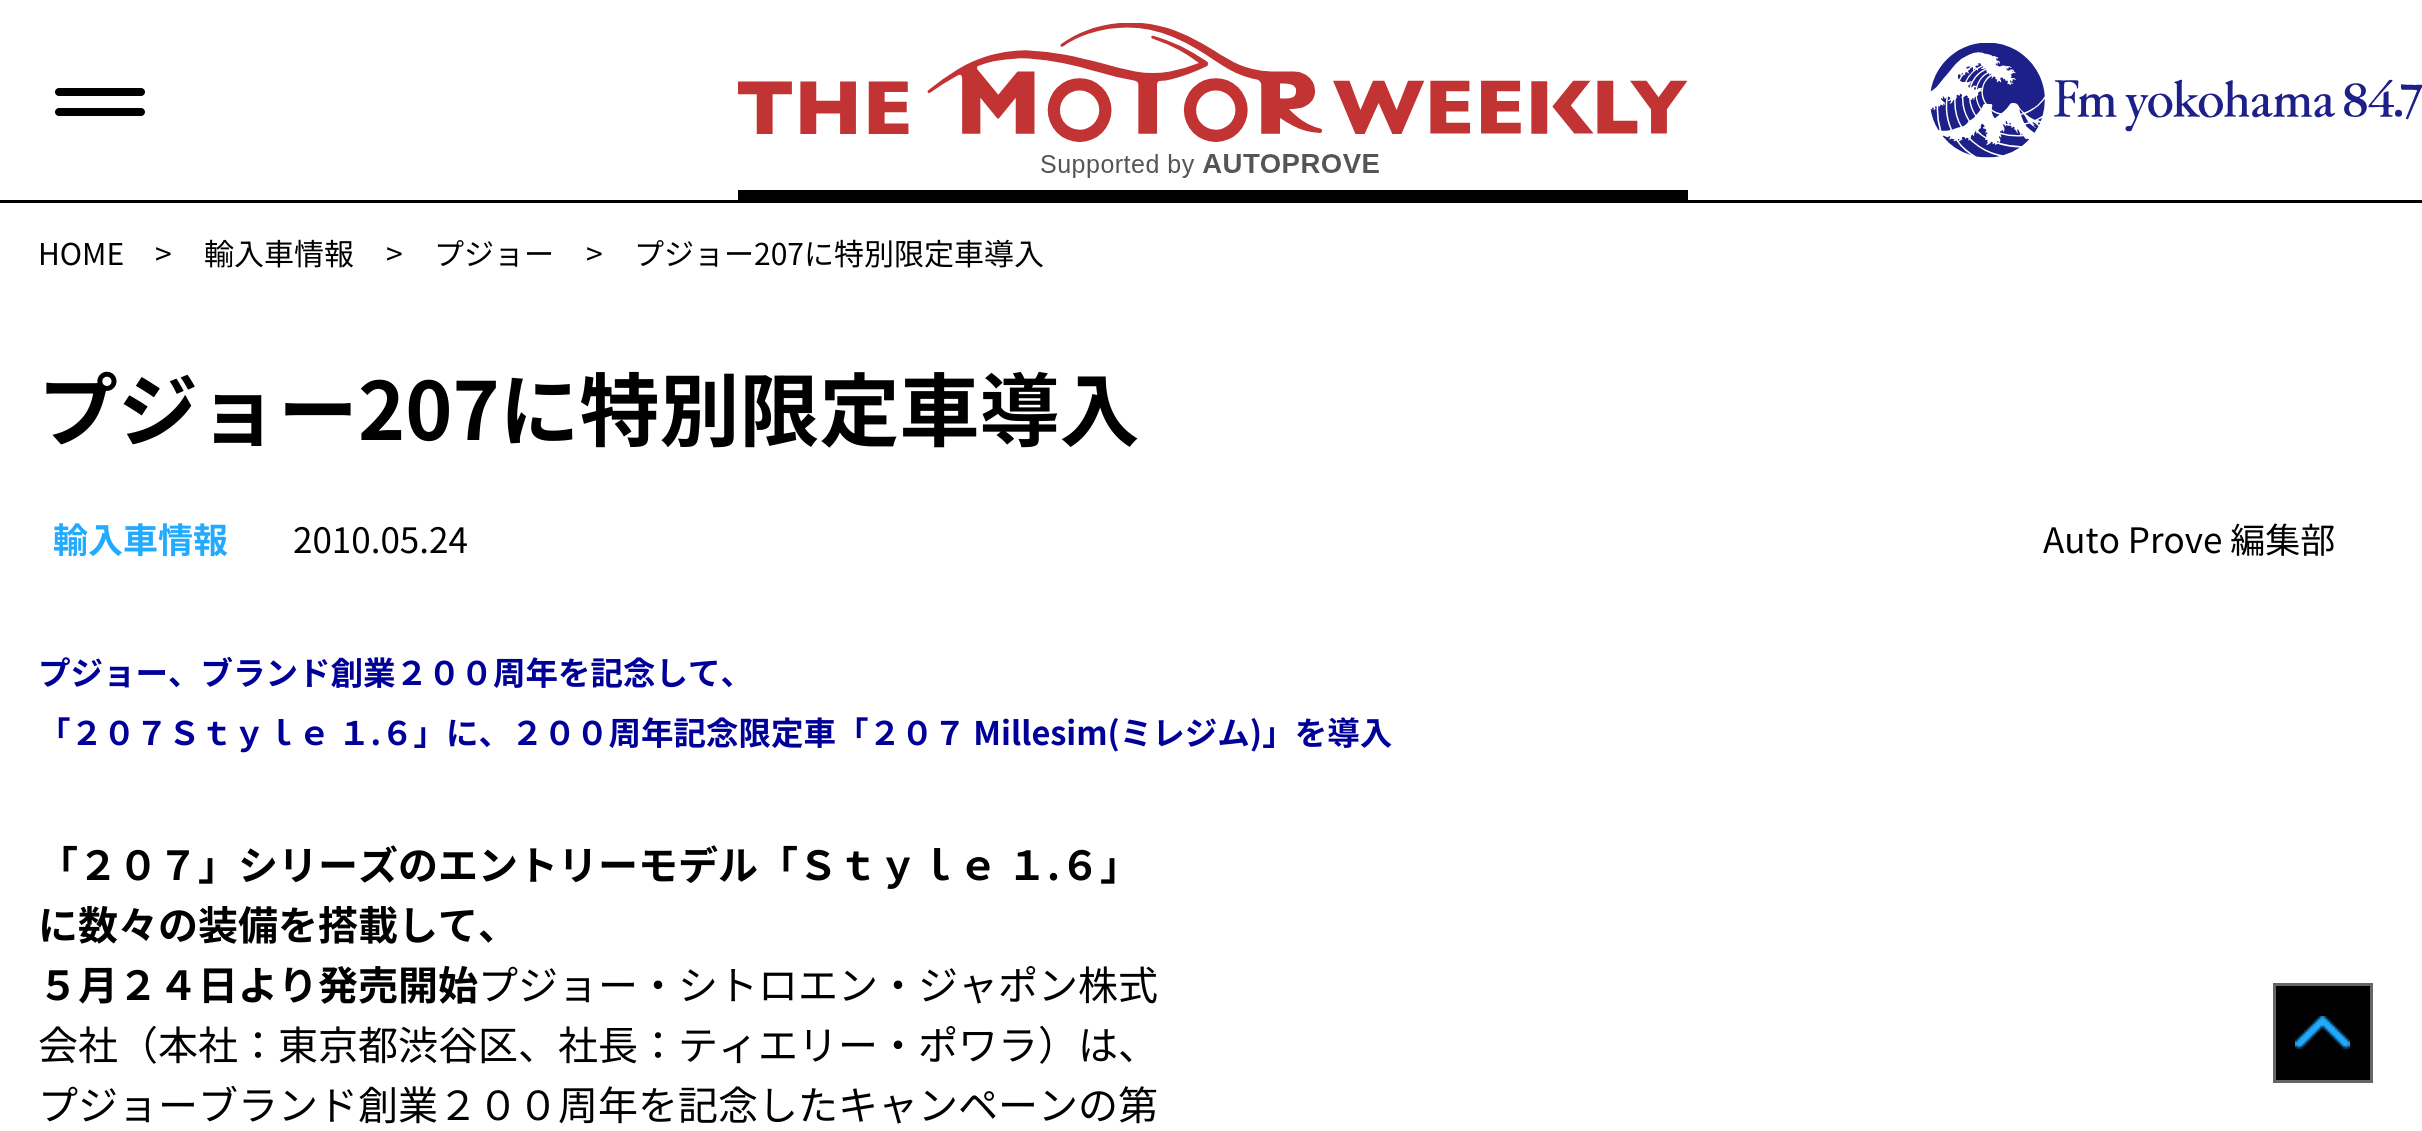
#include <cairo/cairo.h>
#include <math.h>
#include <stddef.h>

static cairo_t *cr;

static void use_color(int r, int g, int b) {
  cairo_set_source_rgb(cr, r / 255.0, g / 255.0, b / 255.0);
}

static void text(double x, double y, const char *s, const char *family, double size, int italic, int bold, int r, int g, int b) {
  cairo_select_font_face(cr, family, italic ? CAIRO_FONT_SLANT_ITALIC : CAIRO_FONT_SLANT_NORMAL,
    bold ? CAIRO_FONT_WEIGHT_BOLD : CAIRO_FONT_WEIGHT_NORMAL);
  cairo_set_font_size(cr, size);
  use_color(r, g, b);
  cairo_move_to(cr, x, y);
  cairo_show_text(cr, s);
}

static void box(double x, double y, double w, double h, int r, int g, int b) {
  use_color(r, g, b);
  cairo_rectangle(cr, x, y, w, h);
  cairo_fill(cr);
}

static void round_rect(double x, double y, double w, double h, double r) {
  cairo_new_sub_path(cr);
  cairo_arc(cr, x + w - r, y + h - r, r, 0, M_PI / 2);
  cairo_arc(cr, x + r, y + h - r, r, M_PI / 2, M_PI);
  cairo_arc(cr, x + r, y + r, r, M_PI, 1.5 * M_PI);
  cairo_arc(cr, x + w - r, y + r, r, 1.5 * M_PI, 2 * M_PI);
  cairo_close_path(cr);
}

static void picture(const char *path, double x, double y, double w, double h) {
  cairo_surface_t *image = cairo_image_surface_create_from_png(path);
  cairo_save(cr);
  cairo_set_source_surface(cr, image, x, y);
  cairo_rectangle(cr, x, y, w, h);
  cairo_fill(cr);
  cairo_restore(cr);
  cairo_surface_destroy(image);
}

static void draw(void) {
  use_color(255, 255, 255);
  cairo_paint(cr);
  box(0, 200, 2422, 3, 0, 0, 0);
  round_rect(55, 88, 90, 8, 4);
  cairo_fill(cr);
  round_rect(55, 108, 90, 8, 4);
  cairo_fill(cr);
  picture("img_01.png", 738, 23, 950, 155);
  box(738, 190, 950, 10, 0, 0, 0);
  picture("img_02.png", 1930, 43, 492, 115);
  cairo_rectangle(cr, 2274.5, 984.5, 97, 97);
  cairo_fill_preserve(cr);
  use_color(102, 102, 102);
  cairo_set_line_width(cr, 3);
  cairo_stroke(cr);
  picture("img_03.png", 2295, 1016, 55, 33);
  text(38, 265, "HOME", "Noto Sans JP", 30, 0, 0, 0, 0, 0);
  text(155, 265, ">", "Noto Sans JP", 30, 0, 0, 0, 0, 0);
  text(204, 265, "輸入車情報", "Noto Sans JP", 30, 0, 0, 0, 0, 0);
  text(386, 265, ">", "Noto Sans JP", 30, 0, 0, 0, 0, 0);
  text(434, 265, "プジョー", "Noto Sans JP", 30, 0, 0, 0, 0, 0);
  text(586, 265, ">", "Noto Sans JP", 30, 0, 0, 0, 0, 0);
  text(634, 265, "プジョー207に特別限定車導入", "Noto Sans JP", 30, 0, 0, 0, 0, 0);
  text(38, 440, "プジョー207に特別限定車導入", "Noto Sans JP", 80, 0, 1, 0, 0, 0);
  text(53, 553, "輸入車情報", "Noto Sans JP", 35, 0, 1, 34, 170, 255);
  text(293, 553, "2010.05.24", "Noto Sans JP", 35, 0, 0, 0, 0, 0);
  text(2043, 553, "Auto Prove 編集部", "Noto Sans JP", 35, 0, 0, 0, 0, 0);
  text(38, 685, "プジョー、ブランド創業２００周年を記念して、", "Noto Sans JP", 32.5, 0, 1, 0, 0, 153);
  text(38, 745, "「２０７Ｓｔｙｌｅ １.６」に、２００周年記念限定車「２０７ Millesim(ミレジム)」を導入", "Noto Sans JP", 32.5, 0, 1, 0, 0, 153);
  text(38, 880, "「２０７」シリーズのエントリーモデル「Ｓｔｙｌｅ １.６」", "Noto Sans JP", 40, 0, 1, 0, 0, 0);
  text(38, 940, "に数々の装備を搭載して、", "Noto Sans JP", 40, 0, 1, 0, 0, 0);
  text(38, 1000, "５月２４日より発売開始", "Noto Sans JP", 40, 0, 1, 0, 0, 0);
  text(478, 1000, "プジョー・シトロエン・ジャポン株式", "Noto Sans JP", 40, 0, 0, 0, 0, 0);
  text(38, 1060, "会社（本社：東京都渋谷区、社長：ティエリー・ポワラ）は、", "Noto Sans JP", 40, 0, 0, 0, 0, 0);
  text(38, 1120, "プジョーブランド創業２００周年を記念したキャンペーンの第", "Noto Sans JP", 40, 0, 0, 0, 0, 0);
}

int main(void) {
  cairo_surface_t *surface = cairo_image_surface_create(CAIRO_FORMAT_RGB24, 2422, 1131);
  cr = cairo_create(surface);
  cairo_font_options_t *options = cairo_font_options_create();
  cairo_font_options_set_hint_metrics(options, CAIRO_HINT_METRICS_OFF);
  cairo_font_options_set_hint_style(options, CAIRO_HINT_STYLE_NONE);
  cairo_set_font_options(cr, options);
  cairo_set_miter_limit(cr, 4);
  draw();
  cairo_surface_write_to_png(surface, "out.png");
  cairo_font_options_destroy(options);
  cairo_destroy(cr);
  cairo_surface_destroy(surface);
  return 0;
}
